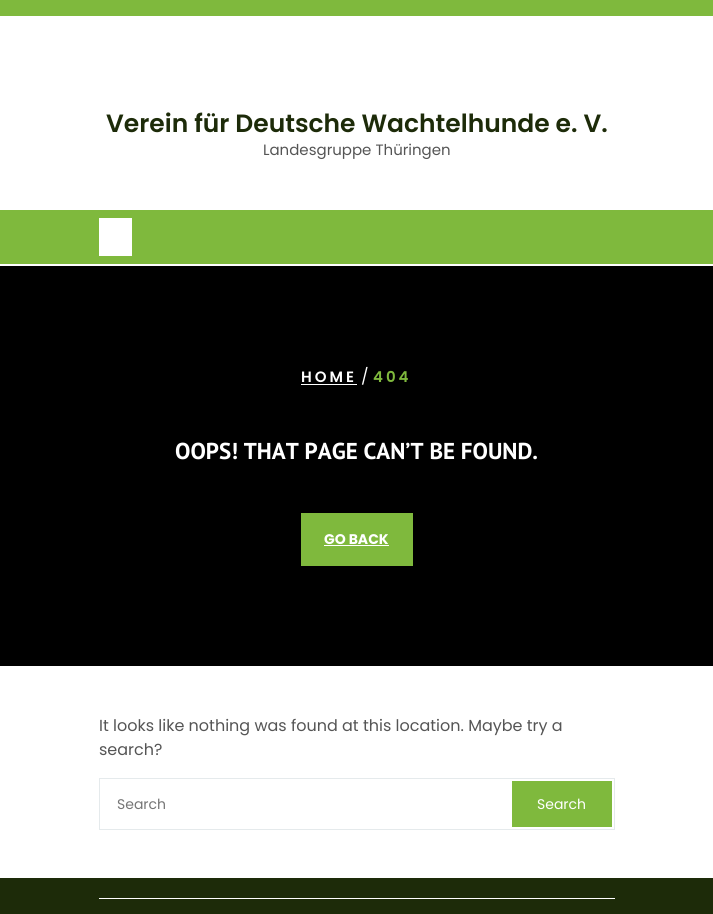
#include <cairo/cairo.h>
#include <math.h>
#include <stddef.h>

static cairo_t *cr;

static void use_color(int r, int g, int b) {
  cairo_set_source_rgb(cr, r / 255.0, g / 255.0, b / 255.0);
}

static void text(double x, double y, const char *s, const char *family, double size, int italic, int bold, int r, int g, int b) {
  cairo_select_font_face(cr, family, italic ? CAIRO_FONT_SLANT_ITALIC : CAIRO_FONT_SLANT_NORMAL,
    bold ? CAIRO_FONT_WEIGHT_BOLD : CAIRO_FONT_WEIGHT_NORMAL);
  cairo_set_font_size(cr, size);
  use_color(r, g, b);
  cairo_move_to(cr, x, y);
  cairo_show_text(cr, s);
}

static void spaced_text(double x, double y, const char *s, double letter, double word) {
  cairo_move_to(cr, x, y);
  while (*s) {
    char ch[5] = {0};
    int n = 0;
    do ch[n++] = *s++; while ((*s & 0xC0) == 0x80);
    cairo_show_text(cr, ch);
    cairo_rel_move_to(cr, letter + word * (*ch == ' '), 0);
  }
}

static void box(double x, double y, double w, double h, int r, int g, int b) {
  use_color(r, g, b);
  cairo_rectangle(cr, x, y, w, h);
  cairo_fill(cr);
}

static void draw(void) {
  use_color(255, 255, 255);
  cairo_paint(cr);
  box(0, 0, 713, 16, 127, 185, 61);
  box(0, 210, 713, 54, 127, 185, 61);
  box(99, 218, 33, 38, 255, 255, 255);
  box(0, 266, 713, 400, 0, 0, 0);
  box(301, 384, 56, 1, 255, 255, 255);
  box(301, 513, 112, 53, 127, 185, 61);
  box(324, 545, 65, 1, 255, 255, 255);
  cairo_rectangle(cr, 99.5, 778.5, 515, 51);
  use_color(229, 234, 236);
  cairo_set_line_width(cr, 1);
  cairo_stroke(cr);
  box(512, 781, 100, 46, 127, 185, 61);
  box(0, 878, 713, 36, 29, 43, 9);
  box(99, 898, 516, 1, 255, 255, 255);
  text(106, 132, "Verein für Deutsche Wachtelhunde e. V.", "Poppins SemiBold", 25, 0, 0, 29, 43, 9);
  text(263, 155, "Landesgruppe Thüringen", "Poppins", 15, 0, 0, 85, 85, 85);
  cairo_select_font_face(cr, "Poppins SemiBold", CAIRO_FONT_SLANT_NORMAL, CAIRO_FONT_WEIGHT_NORMAL);
  use_color(255, 255, 255);
  spaced_text(301, 382, "HOME", 3, 0);
  text(361, 382, "/", "Poppins", 16, 0, 0, 255, 255, 255);
  cairo_select_font_face(cr, "Poppins SemiBold", CAIRO_FONT_SLANT_NORMAL, CAIRO_FONT_WEIGHT_NORMAL);
  cairo_set_font_size(cr, 15);
  use_color(127, 185, 61);
  spaced_text(373, 382, "404", 3, 0);
  text(175, 459, "OOPS! THAT PAGE CAN’T BE FOUND.", "PT Sans", 23, 0, 1, 255, 255, 255);
  text(324, 544, "GO BACK", "Poppins", 14, 0, 1, 255, 255, 255);
  text(99, 731, "It looks like nothing was found at this location. Maybe try a", "Poppins", 16, 0, 0, 85, 85, 85);
  text(99, 755, "search?", "Poppins", 16, 0, 0, 85, 85, 85);
  text(117, 809, "Search", "Poppins", 14, 0, 0, 117, 117, 117);
  text(537, 809, "Search", "Poppins", 14, 0, 0, 255, 255, 255);
}

int main(void) {
  cairo_surface_t *surface = cairo_image_surface_create(CAIRO_FORMAT_RGB24, 713, 914);
  cr = cairo_create(surface);
  cairo_font_options_t *options = cairo_font_options_create();
  cairo_font_options_set_hint_metrics(options, CAIRO_HINT_METRICS_OFF);
  cairo_font_options_set_hint_style(options, CAIRO_HINT_STYLE_NONE);
  cairo_set_font_options(cr, options);
  cairo_set_miter_limit(cr, 4);
  draw();
  cairo_surface_write_to_png(surface, "out.png");
  cairo_font_options_destroy(options);
  cairo_destroy(cr);
  cairo_surface_destroy(surface);
  return 0;
}
